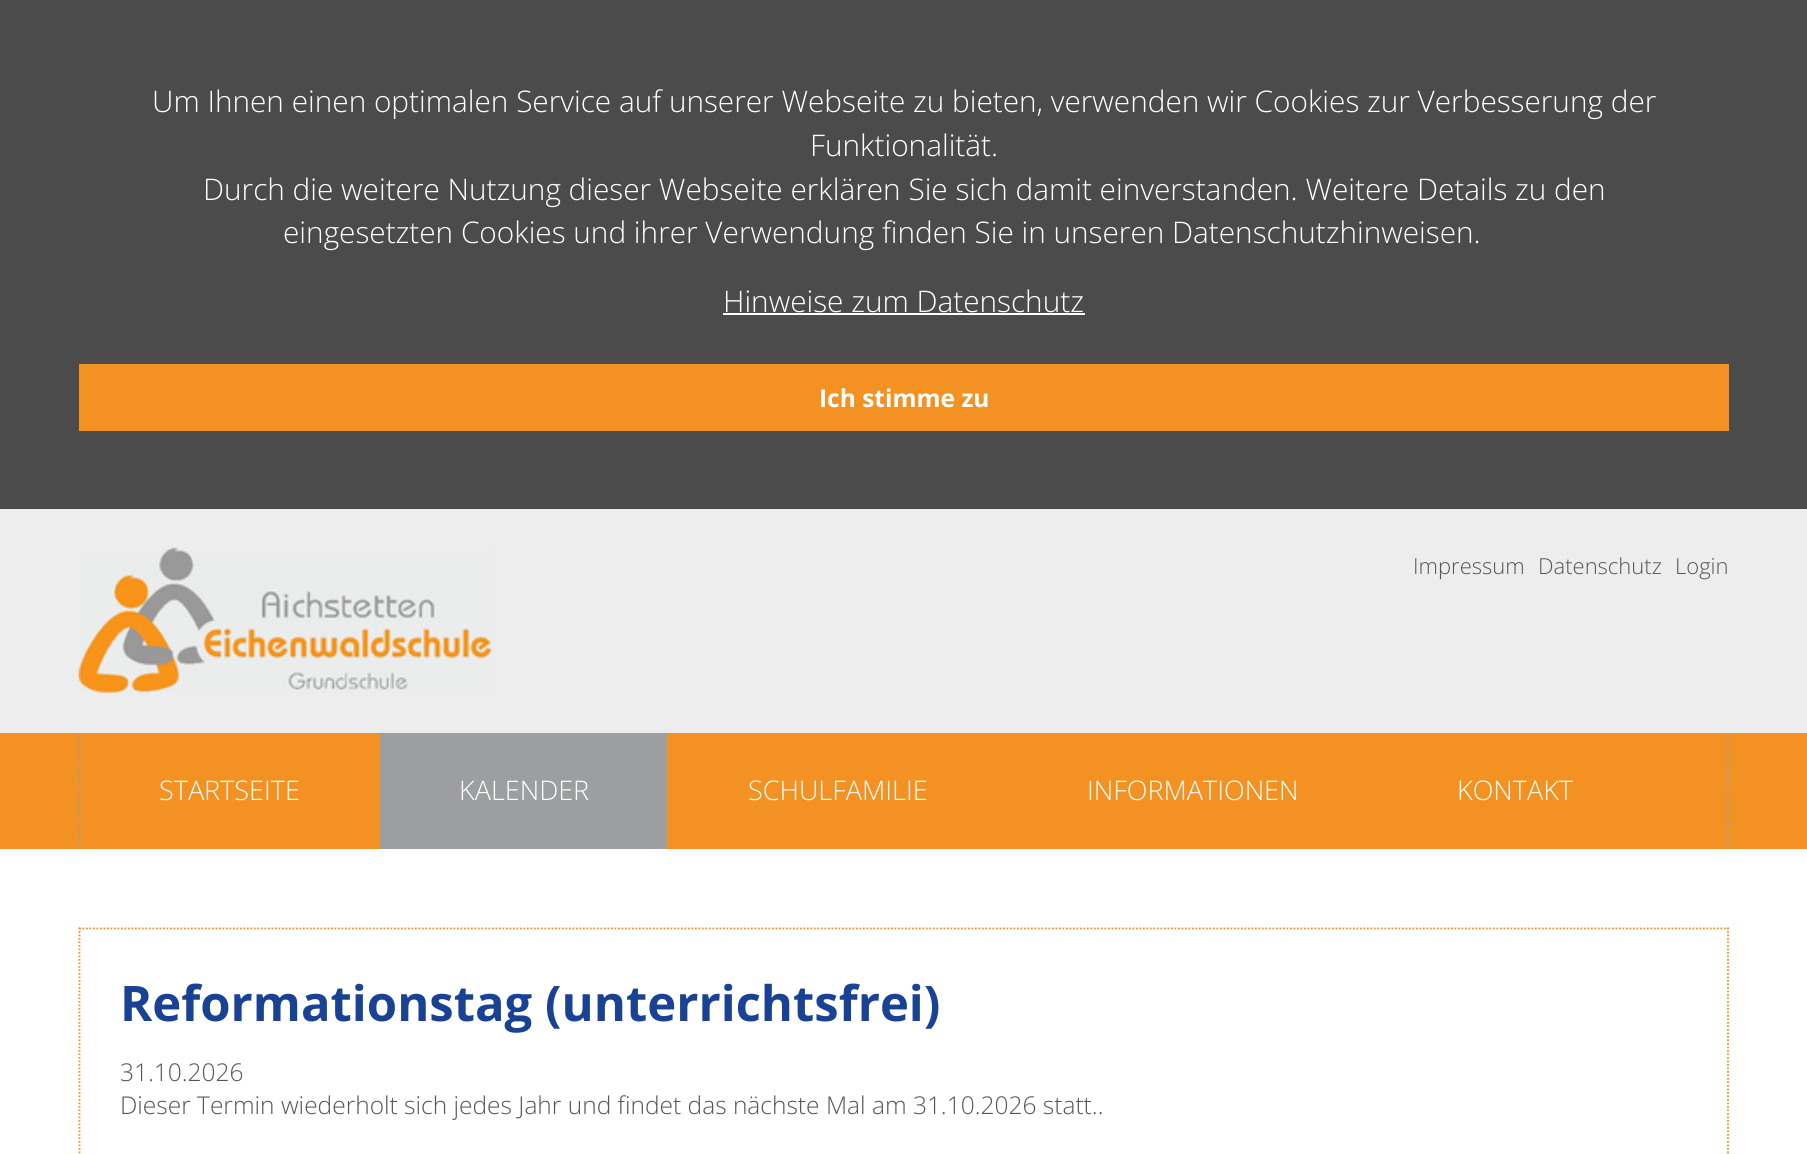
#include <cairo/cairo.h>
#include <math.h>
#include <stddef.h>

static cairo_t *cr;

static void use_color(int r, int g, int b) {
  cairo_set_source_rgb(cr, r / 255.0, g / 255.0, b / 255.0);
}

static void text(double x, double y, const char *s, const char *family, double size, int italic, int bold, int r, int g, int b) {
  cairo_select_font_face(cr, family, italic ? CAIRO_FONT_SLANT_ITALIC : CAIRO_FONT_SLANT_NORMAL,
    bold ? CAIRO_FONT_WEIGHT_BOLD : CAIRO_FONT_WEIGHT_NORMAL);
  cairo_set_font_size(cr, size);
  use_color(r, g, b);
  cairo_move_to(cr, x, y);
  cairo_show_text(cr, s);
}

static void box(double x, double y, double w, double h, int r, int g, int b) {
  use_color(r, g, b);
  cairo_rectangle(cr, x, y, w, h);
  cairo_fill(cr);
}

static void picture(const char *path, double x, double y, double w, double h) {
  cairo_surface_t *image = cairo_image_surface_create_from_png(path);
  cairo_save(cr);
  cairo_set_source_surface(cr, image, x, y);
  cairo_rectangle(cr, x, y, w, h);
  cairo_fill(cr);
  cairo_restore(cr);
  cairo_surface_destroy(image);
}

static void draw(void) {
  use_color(75, 75, 75);
  cairo_paint(cr);
  box(723, 313, 362, 2, 255, 255, 255);
  box(79, 364, 1650, 67, 243, 146, 35);
  box(0, 509, 1807, 224, 237, 237, 237);
  picture("img_01.png", 78, 547, 416, 146);
  box(0, 733, 1807, 116, 243, 146, 35);
  cairo_new_path(cr);
  cairo_move_to(cr, 1728, 733);
  cairo_line_to(cr, 1728, 849);
  use_color(156, 158, 159);
  cairo_set_line_width(cr, 1.8);
  cairo_set_dash(cr, (double[]){1.75, 1.75}, 2, 0);
  cairo_stroke(cr);
  cairo_new_path(cr);
  cairo_move_to(cr, 79.5, 733);
  cairo_line_to(cr, 79.5, 849);
  cairo_stroke(cr);
  box(380, 733, 287, 116, 156, 158, 159);
  box(0, 849, 1807, 305, 255, 255, 255);
  cairo_new_path(cr);
  cairo_move_to(cr, 79, 928.5);
  cairo_line_to(cr, 1729, 928.5);
  use_color(243, 146, 35);
  cairo_stroke(cr);
  cairo_new_path(cr);
  cairo_move_to(cr, 1728, 927.5);
  cairo_line_to(cr, 1728, 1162);
  cairo_stroke(cr);
  cairo_new_path(cr);
  cairo_move_to(cr, 79.5, 927.5);
  cairo_line_to(cr, 79.5, 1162);
  cairo_stroke(cr);
  text(152, 112, "Um Ihnen einen optimalen Service auf unserer Webseite zu bieten, verwenden wir Cookies zur Verbesserung der", "Open Sans Light", 29.75, 0, 0, 255, 255, 255);
  text(810, 156, "Funktionalität.", "Open Sans Light", 29.75, 0, 0, 255, 255, 255);
  text(203, 200, "Durch die weitere Nutzung dieser Webseite erklären Sie sich damit einverstanden. Weitere Details zu den", "Open Sans Light", 29.75, 0, 0, 255, 255, 255);
  text(283, 243, "eingesetzten Cookies und ihrer Verwendung finden Sie in unseren Datenschutzhinweisen.", "Open Sans Light", 29.75, 0, 0, 255, 255, 255);
  text(723, 312, "Hinweise zum Datenschutz", "Open Sans Light", 29.75, 0, 0, 255, 255, 255);
  text(819, 407, "Ich stimme zu", "Open Sans", 24.5, 0, 1, 255, 255, 255);
  text(1413, 574, "Impressum", "Open Sans Light", 22, 0, 0, 85, 85, 89);
  text(1538, 574, "Datenschutz", "Open Sans Light", 22, 0, 0, 85, 85, 89);
  text(1675, 574, "Login", "Open Sans Light", 22, 0, 0, 85, 85, 89);
  text(159, 800, "STARTSEITE", "Open Sans Light", 27, 0, 0, 255, 255, 255);
  text(459, 800, "KALENDER", "Open Sans Light", 27, 0, 0, 255, 255, 255);
  text(748, 800, "SCHULFAMILIE", "Open Sans Light", 27, 0, 0, 255, 255, 255);
  text(1087, 800, "INFORMATIONEN", "Open Sans Light", 27, 0, 0, 255, 255, 255);
  text(1457, 800, "KONTAKT", "Open Sans Light", 27, 0, 0, 255, 255, 255);
  text(120, 1021, "Reformationstag (unterrichtsfrei)", "Open Sans", 49, 0, 1, 26, 66, 148);
  text(120, 1081, "31.10.2026", "Open Sans Light", 24.5, 0, 0, 85, 85, 89);
  text(120, 1114, "Dieser Termin wiederholt sich jedes Jahr und findet das nächste Mal am 31.10.2026 statt..", "Open Sans Light", 24.5, 0, 0, 85, 85, 89);
}

int main(void) {
  cairo_surface_t *surface = cairo_image_surface_create(CAIRO_FORMAT_RGB24, 1807, 1154);
  cr = cairo_create(surface);
  cairo_font_options_t *options = cairo_font_options_create();
  cairo_font_options_set_hint_metrics(options, CAIRO_HINT_METRICS_OFF);
  cairo_font_options_set_hint_style(options, CAIRO_HINT_STYLE_NONE);
  cairo_set_font_options(cr, options);
  cairo_set_miter_limit(cr, 4);
  draw();
  cairo_surface_write_to_png(surface, "out.png");
  cairo_font_options_destroy(options);
  cairo_destroy(cr);
  cairo_surface_destroy(surface);
  return 0;
}
